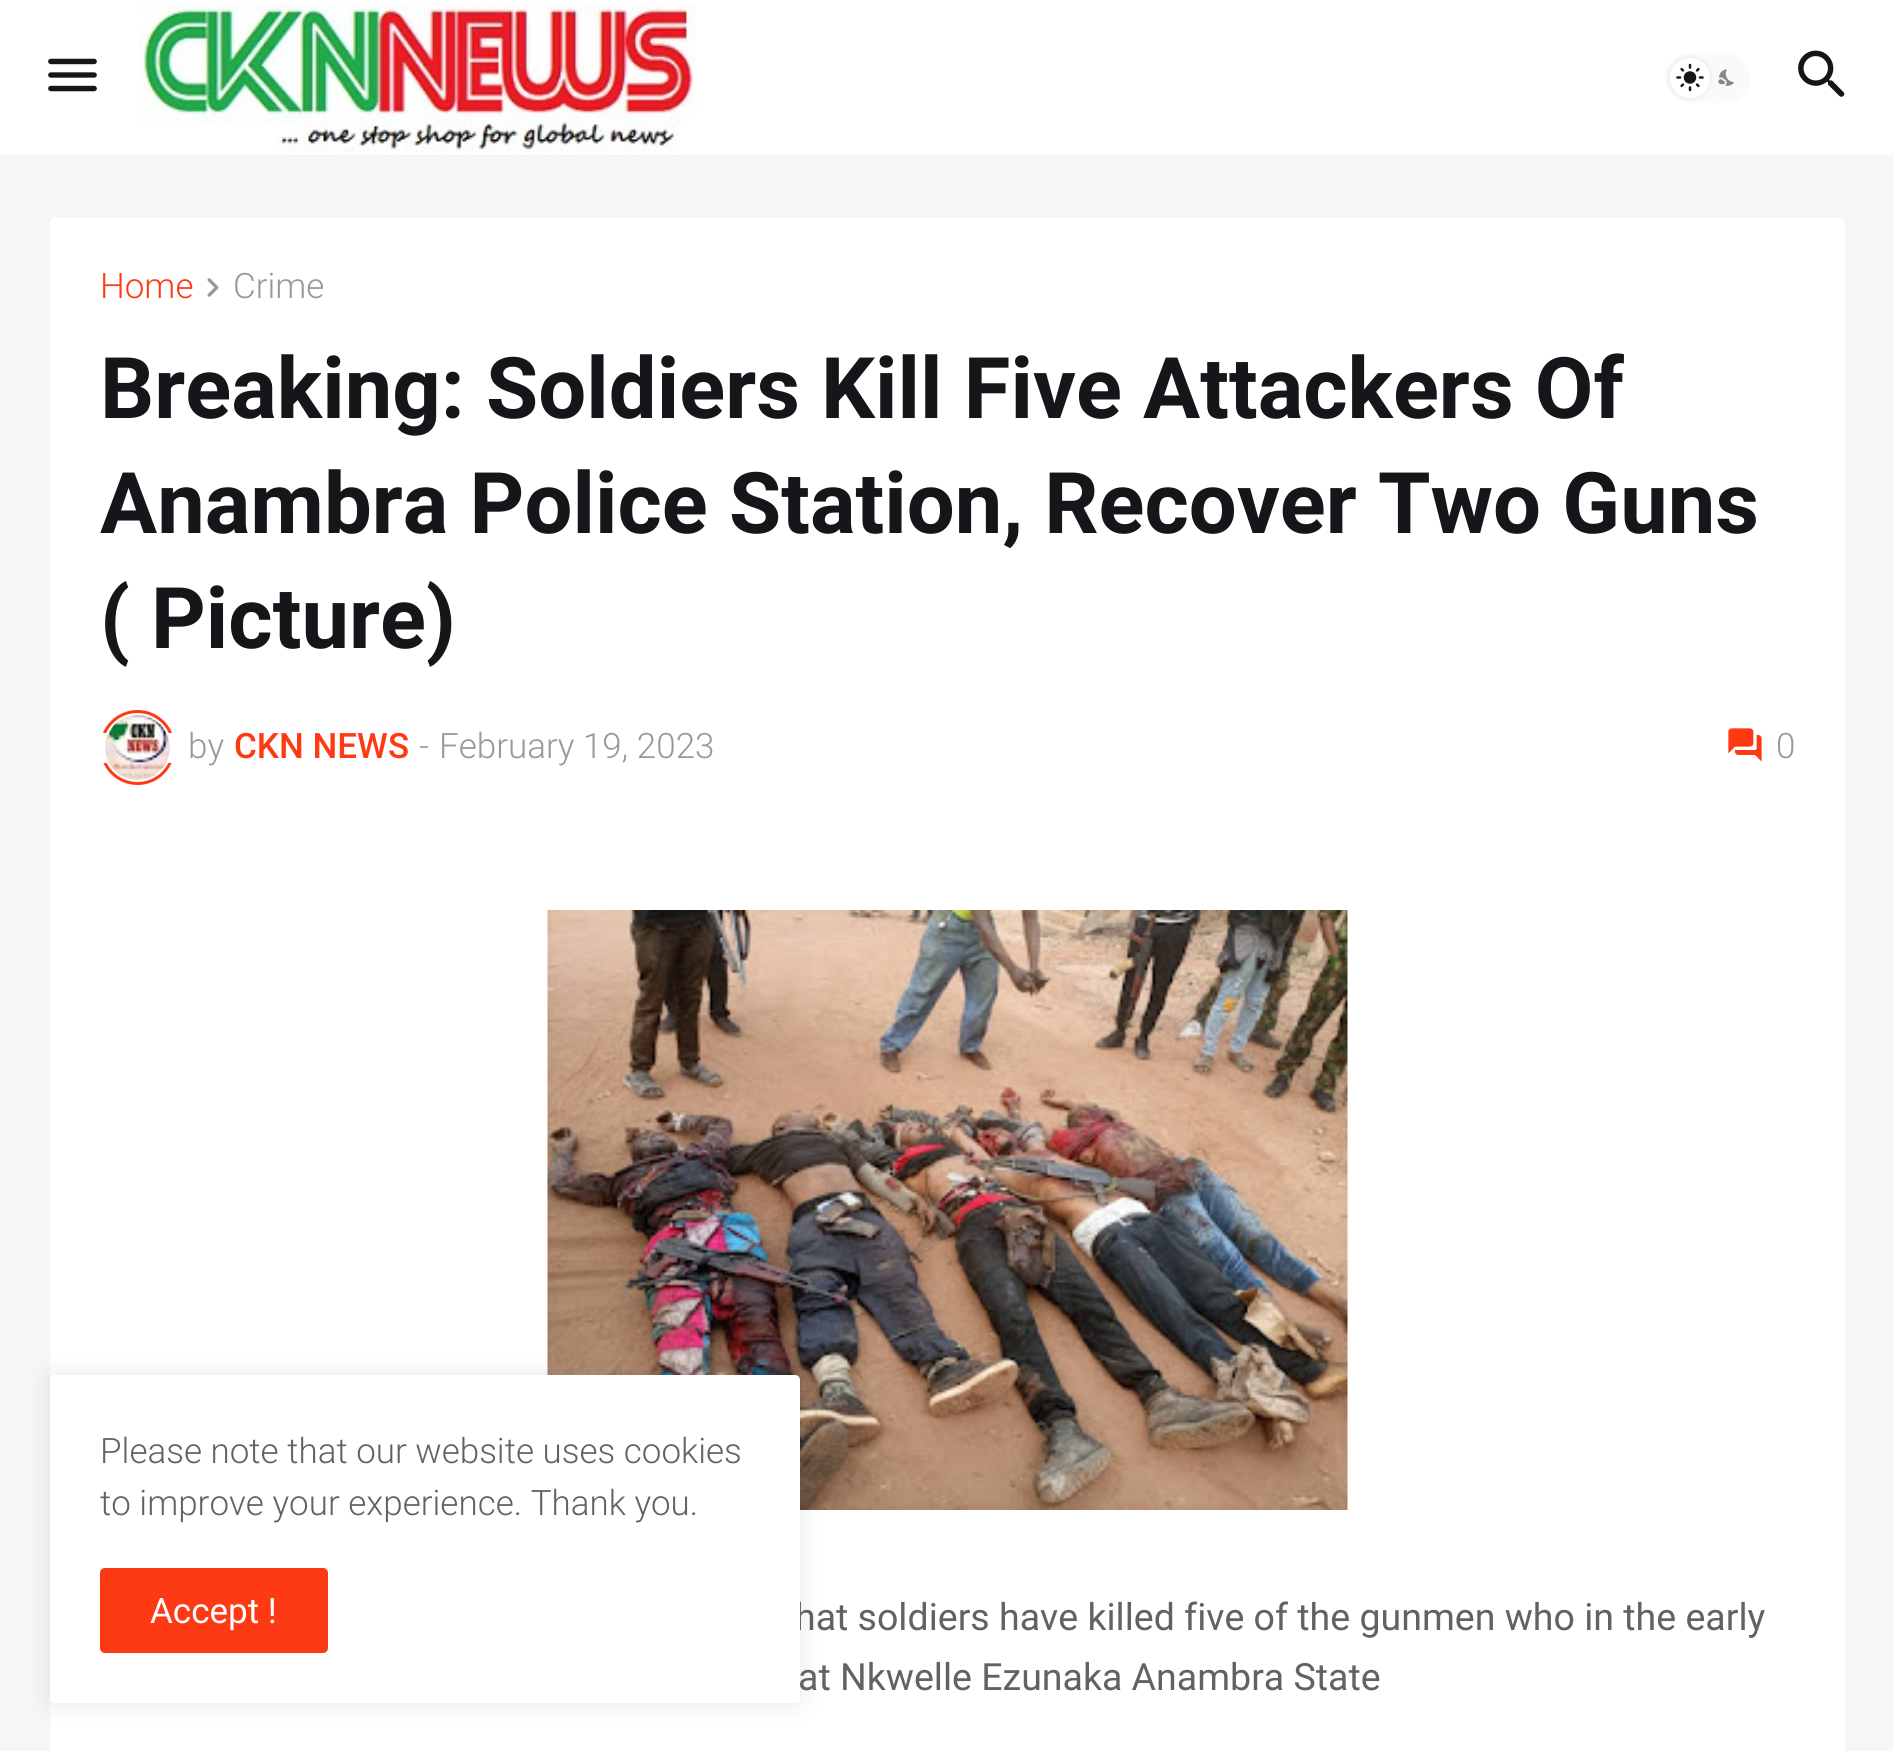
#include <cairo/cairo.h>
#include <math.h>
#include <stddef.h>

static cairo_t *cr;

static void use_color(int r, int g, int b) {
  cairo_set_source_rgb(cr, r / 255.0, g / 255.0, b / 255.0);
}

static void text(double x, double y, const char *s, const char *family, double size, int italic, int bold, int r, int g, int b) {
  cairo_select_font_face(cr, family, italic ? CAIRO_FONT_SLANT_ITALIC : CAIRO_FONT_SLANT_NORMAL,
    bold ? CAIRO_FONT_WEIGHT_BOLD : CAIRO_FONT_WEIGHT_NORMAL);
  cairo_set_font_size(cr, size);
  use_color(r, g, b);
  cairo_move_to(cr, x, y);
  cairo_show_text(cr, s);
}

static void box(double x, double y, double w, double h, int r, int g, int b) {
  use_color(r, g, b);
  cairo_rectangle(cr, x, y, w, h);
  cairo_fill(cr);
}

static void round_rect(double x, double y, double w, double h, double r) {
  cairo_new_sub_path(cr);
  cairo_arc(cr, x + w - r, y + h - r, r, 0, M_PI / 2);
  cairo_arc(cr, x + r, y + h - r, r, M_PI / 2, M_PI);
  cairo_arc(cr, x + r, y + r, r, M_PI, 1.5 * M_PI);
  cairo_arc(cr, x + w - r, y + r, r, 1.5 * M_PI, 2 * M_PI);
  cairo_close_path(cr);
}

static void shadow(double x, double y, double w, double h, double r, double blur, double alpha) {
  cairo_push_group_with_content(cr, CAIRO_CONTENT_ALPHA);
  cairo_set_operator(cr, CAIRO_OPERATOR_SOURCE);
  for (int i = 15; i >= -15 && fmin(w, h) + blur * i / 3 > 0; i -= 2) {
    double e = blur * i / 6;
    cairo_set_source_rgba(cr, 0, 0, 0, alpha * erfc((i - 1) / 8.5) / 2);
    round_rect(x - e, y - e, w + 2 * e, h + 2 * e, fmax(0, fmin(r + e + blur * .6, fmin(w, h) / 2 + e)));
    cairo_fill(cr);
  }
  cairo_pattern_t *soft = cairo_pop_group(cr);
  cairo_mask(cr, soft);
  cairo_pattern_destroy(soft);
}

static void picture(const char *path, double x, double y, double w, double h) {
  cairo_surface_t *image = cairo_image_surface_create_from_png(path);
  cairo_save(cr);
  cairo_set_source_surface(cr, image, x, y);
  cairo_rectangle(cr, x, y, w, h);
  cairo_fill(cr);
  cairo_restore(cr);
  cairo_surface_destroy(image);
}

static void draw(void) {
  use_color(245, 246, 247);
  cairo_paint(cr);
  box(0, 0, 1893, 155, 255, 255, 255);
  picture("img_01.png", 48, 58, 49, 34);
  picture("img_02.png", 138, 2, 559, 151);
  use_color(250, 250, 250);
  round_rect(1665, 53, 85, 50, 25);
  cairo_fill(cr);
  picture("img_04.png", 1718, 69, 16, 17);
  use_color(0, 0, 0);
  shadow(1670, 58, 40, 40, 20, 2.5, 0.1);
  use_color(255, 255, 255);
  cairo_arc(cr, 1690, 78, 20, 0, 2 * M_PI);
  cairo_fill(cr);
  picture("img_03.png", 1676, 63, 28, 29);
  picture("img_05.png", 1798, 50, 47, 47);
  round_rect(50, 218, 1795, 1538, 5);
  cairo_fill(cr);
  picture("img_06.png", 207, 278, 12, 19);
  cairo_arc(cr, 137.5, 747.5, 36, 0, 2 * M_PI);
  use_color(253, 58, 19);
  cairo_set_line_width(cr, 3);
  cairo_stroke(cr);
  box(100, 733, 75, 30, 255, 255, 255);
  picture("img_07.png", 105, 715, 65, 65);
  picture("img_08.png", 1728, 728, 34, 34);
  picture("img_09.png", 547, 910, 801, 600);
  use_color(0, 0, 0);
  shadow(50, 1375, 750, 328, 5, 12.5, 0.1);
  text(100, 298, "Home", "Roboto Light", 35, 0, 0, 253, 58, 19);
  text(233, 298, "Crime", "Roboto Light", 35, 0, 0, 151, 151, 157);
  text(100, 418, "Breaking: Soldiers Kill Five Attackers Of", "Roboto", 85, 0, 1, 22, 22, 26);
  text(100, 533, "Anambra Police Station, Recover Two Guns", "Roboto", 85, 0, 1, 22, 22, 26);
  text(100, 648, "( Picture)", "Roboto", 85, 0, 1, 22, 22, 26);
  text(188, 758, "by", "Roboto Light", 35, 0, 0, 151, 151, 157);
  text(234, 758, "CKN NEWS", "Roboto Medium", 35, 0, 0, 253, 58, 19);
  text(419, 758, "-", "Roboto Light", 35, 0, 0, 151, 151, 157);
  text(439, 758, "February 19, 2023", "Roboto Light", 35, 0, 0, 151, 151, 157);
  text(1776, 758, "0", "Roboto Light", 35, 0, 0, 151, 151, 157);
  text(795, 1630, "hat soldiers have killed five of the gunmen who in the early", "Roboto", 37.5, 0, 0, 98, 98, 98);
  text(798, 1690, "at Nkwelle Ezunaka Anambra State", "Roboto", 37.5, 0, 0, 98, 98, 98);
  use_color(255, 255, 255);
  round_rect(50, 1375, 750, 328, 5);
  cairo_fill(cr);
  text(100, 1463, "Please note that our website uses cookies", "Roboto Light", 35, 0, 0, 98, 98, 98);
  text(100, 1515, "to improve your experience. Thank you.", "Roboto Light", 35, 0, 0, 98, 98, 98);
  use_color(253, 58, 19);
  round_rect(100, 1568, 228, 85, 5);
  cairo_fill(cr);
  text(150, 1623, "Accept !", "Roboto", 35, 0, 0, 255, 255, 255);
}

int main(void) {
  cairo_surface_t *surface = cairo_image_surface_create(CAIRO_FORMAT_RGB24, 1893, 1751);
  cr = cairo_create(surface);
  cairo_font_options_t *options = cairo_font_options_create();
  cairo_font_options_set_hint_metrics(options, CAIRO_HINT_METRICS_OFF);
  cairo_font_options_set_hint_style(options, CAIRO_HINT_STYLE_NONE);
  cairo_set_font_options(cr, options);
  cairo_set_miter_limit(cr, 4);
  draw();
  cairo_surface_write_to_png(surface, "out.png");
  cairo_font_options_destroy(options);
  cairo_destroy(cr);
  cairo_surface_destroy(surface);
  return 0;
}
